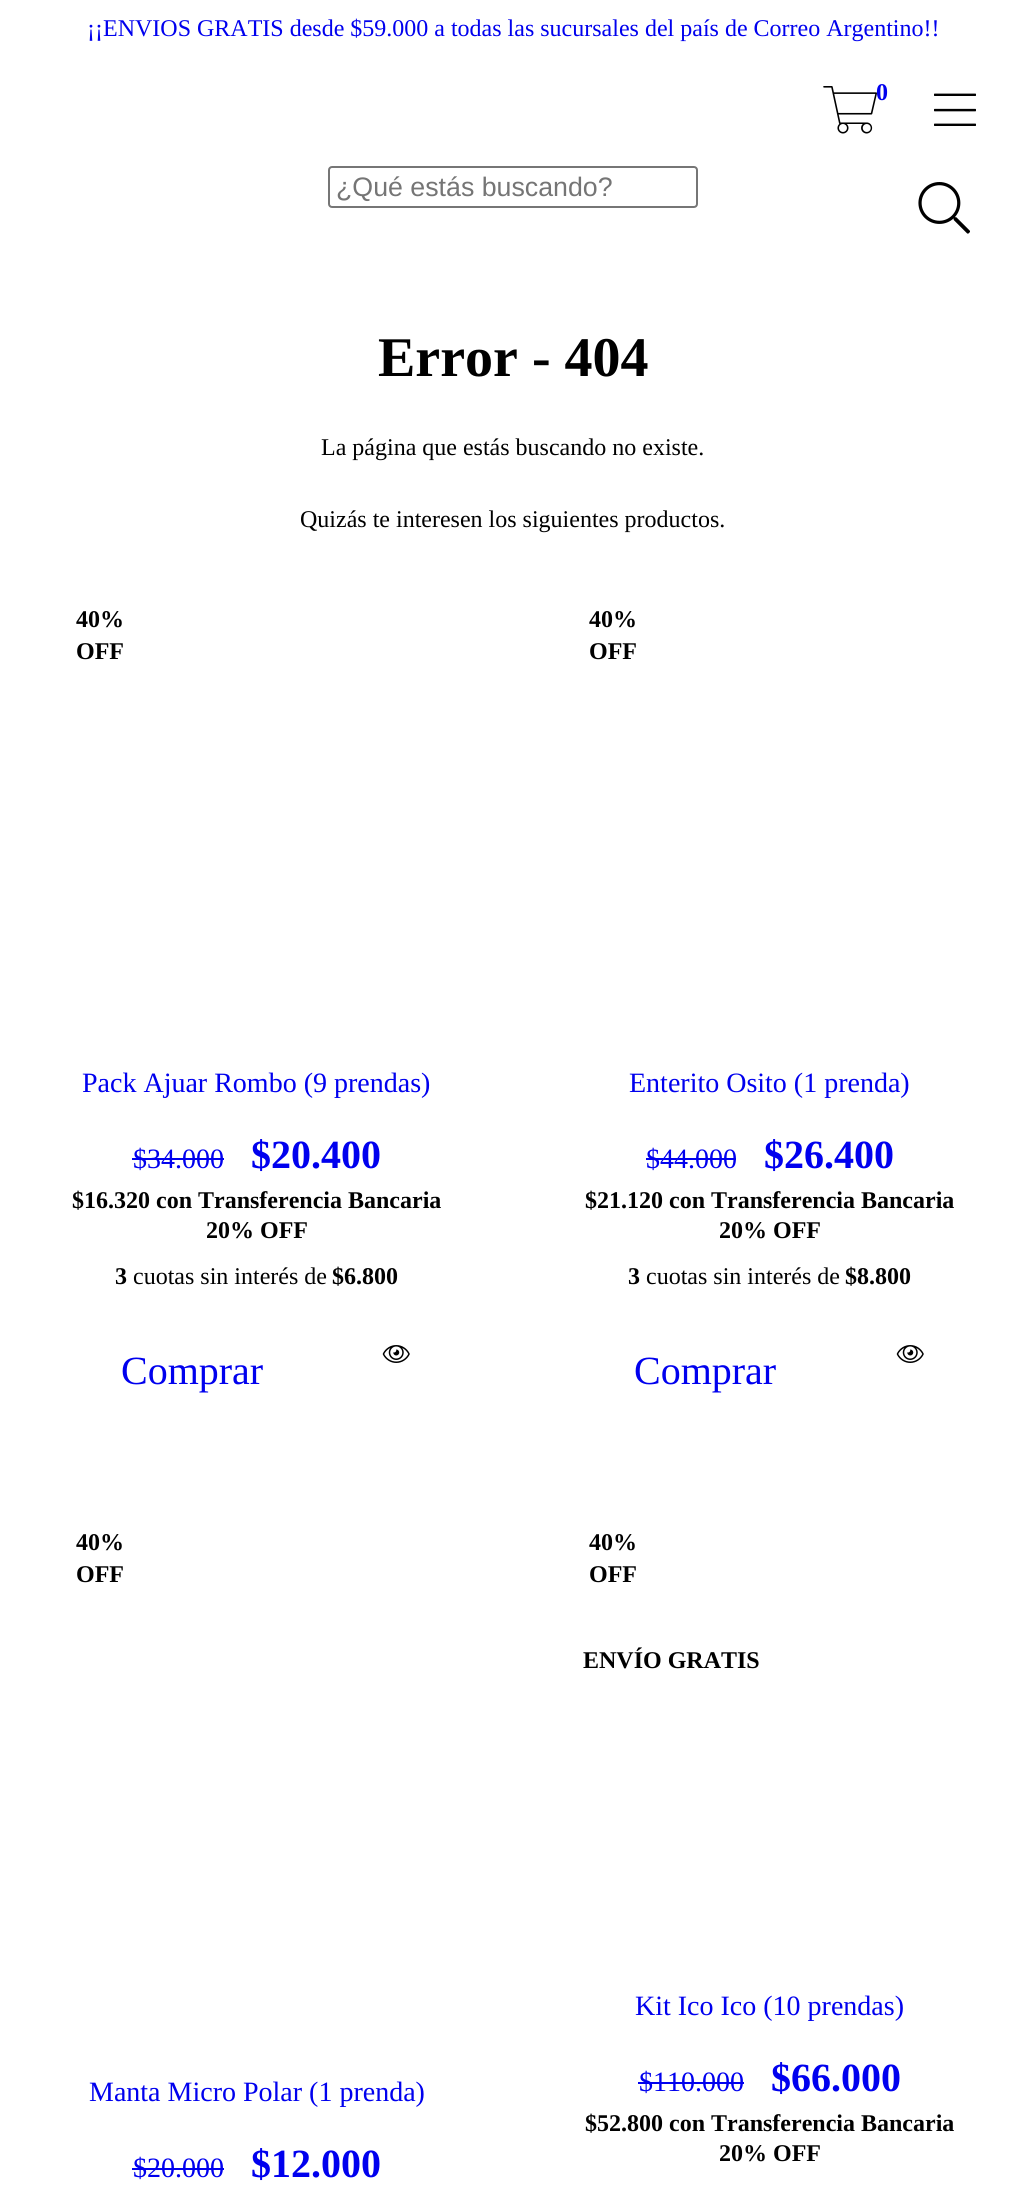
#include <cairo/cairo.h>
#include <math.h>
#include <stddef.h>

static cairo_t *cr;

static void use_color(int r, int g, int b) {
  cairo_set_source_rgb(cr, r / 255.0, g / 255.0, b / 255.0);
}

static void text(double x, double y, const char *s, const char *family, double size, int italic, int bold, int r, int g, int b) {
  cairo_select_font_face(cr, family, italic ? CAIRO_FONT_SLANT_ITALIC : CAIRO_FONT_SLANT_NORMAL,
    bold ? CAIRO_FONT_WEIGHT_BOLD : CAIRO_FONT_WEIGHT_NORMAL);
  cairo_set_font_size(cr, size);
  use_color(r, g, b);
  cairo_move_to(cr, x, y);
  cairo_show_text(cr, s);
}

static void box(double x, double y, double w, double h, int r, int g, int b) {
  use_color(r, g, b);
  cairo_rectangle(cr, x, y, w, h);
  cairo_fill(cr);
}

static void round_rect(double x, double y, double w, double h, double r) {
  cairo_new_sub_path(cr);
  cairo_arc(cr, x + w - r, y + h - r, r, 0, M_PI / 2);
  cairo_arc(cr, x + r, y + h - r, r, M_PI / 2, M_PI);
  cairo_arc(cr, x + r, y + r, r, M_PI, 1.5 * M_PI);
  cairo_arc(cr, x + w - r, y + r, r, 1.5 * M_PI, 2 * M_PI);
  cairo_close_path(cr);
}

static void picture(const char *path, double x, double y, double w, double h) {
  cairo_surface_t *image = cairo_image_surface_create_from_png(path);
  cairo_save(cr);
  cairo_set_source_surface(cr, image, x, y);
  cairo_rectangle(cr, x, y, w, h);
  cairo_fill(cr);
  cairo_restore(cr);
  cairo_surface_destroy(image);
}

static void draw(void) {
  use_color(255, 255, 255);
  cairo_paint(cr);
  picture("img_01.png", 823, 86, 54, 48);
  picture("img_02.png", 934, 93, 42, 33);
  round_rect(329, 167, 368, 40, 3);
  use_color(118, 118, 118);
  cairo_stroke(cr);
  picture("img_03.png", 918, 182, 52, 52);
  box(132, 1158, 92, 2, 0, 0, 238);
  picture("img_04.png", 382, 1345, 28, 18);
  box(646, 1158, 90, 2, 0, 0, 238);
  picture("img_04.png", 896, 1345, 28, 18);
  box(132, 2168, 92, 2, 0, 0, 238);
  box(638, 2082, 106, 2, 0, 0, 238);
  text(87, 36, "¡¡ENVIOS GRATIS desde $59.000 a todas las sucursales del país de Correo Argentino!!", "Liberation Serif", 24, 0, 0, 0, 0, 238);
  text(876, 100, "0", "Liberation Serif", 24, 0, 1, 0, 0, 238);
  text(336, 196, "¿Qué estás buscando?", "Liberation Sans", 26.75, 0, 0, 117, 117, 117);
  text(378, 376, "Error - 404", "Liberation Serif", 56, 0, 1, 0, 0, 0);
  text(321, 455, "La página que estás buscando no existe.", "Liberation Serif", 24, 0, 0, 0, 0, 0);
  text(300, 527, "Quizás te interesen los siguientes productos.", "Liberation Serif", 24, 0, 0, 0, 0, 0);
  text(76, 627, "40%", "Liberation Serif", 24, 0, 1, 0, 0, 0);
  text(76, 659, "OFF", "Liberation Serif", 24, 0, 1, 0, 0, 0);
  text(82, 1092, "Pack Ajuar Rombo (9 prendas)", "Liberation Serif", 28, 0, 0, 0, 0, 238);
  text(133, 1168, "$34.000", "Liberation Serif", 28, 0, 0, 0, 0, 238);
  text(251, 1168, "$20.400", "Liberation Serif", 40, 0, 1, 0, 0, 238);
  text(72, 1208, "$16.320 con Transferencia Bancaria", "Liberation Serif", 24, 0, 1, 0, 0, 0);
  text(206, 1238, "20% OFF", "Liberation Serif", 24, 0, 1, 0, 0, 0);
  text(115, 1284, "3", "Liberation Serif", 24, 0, 1, 0, 0, 0);
  text(133, 1284, "cuotas sin interés de", "Liberation Serif", 24, 0, 0, 0, 0, 0);
  text(332, 1284, "$6.800", "Liberation Serif", 24, 0, 1, 0, 0, 0);
  text(121, 1384, "Comprar", "Liberation Serif", 40, 0, 0, 0, 0, 238);
  text(589, 627, "40%", "Liberation Serif", 24, 0, 1, 0, 0, 0);
  text(589, 659, "OFF", "Liberation Serif", 24, 0, 1, 0, 0, 0);
  text(629, 1092, "Enterito Osito (1 prenda)", "Liberation Serif", 28, 0, 0, 0, 0, 238);
  text(646, 1168, "$44.000", "Liberation Serif", 28, 0, 0, 0, 0, 238);
  text(764, 1168, "$26.400", "Liberation Serif", 40, 0, 1, 0, 0, 238);
  text(585, 1208, "$21.120 con Transferencia Bancaria", "Liberation Serif", 24, 0, 1, 0, 0, 0);
  text(719, 1238, "20% OFF", "Liberation Serif", 24, 0, 1, 0, 0, 0);
  text(628, 1284, "3", "Liberation Serif", 24, 0, 1, 0, 0, 0);
  text(646, 1284, "cuotas sin interés de", "Liberation Serif", 24, 0, 0, 0, 0, 0);
  text(845, 1284, "$8.800", "Liberation Serif", 24, 0, 1, 0, 0, 0);
  text(634, 1384, "Comprar", "Liberation Serif", 40, 0, 0, 0, 0, 238);
  text(76, 1550, "40%", "Liberation Serif", 24, 0, 1, 0, 0, 0);
  text(76, 1582, "OFF", "Liberation Serif", 24, 0, 1, 0, 0, 0);
  text(89, 2101, "Manta Micro Polar (1 prenda)", "Liberation Serif", 28, 0, 0, 0, 0, 238);
  text(133, 2177, "$20.000", "Liberation Serif", 28, 0, 0, 0, 0, 238);
  text(251, 2177, "$12.000", "Liberation Serif", 40, 0, 1, 0, 0, 238);
  text(589, 1550, "40%", "Liberation Serif", 24, 0, 1, 0, 0, 0);
  text(589, 1582, "OFF", "Liberation Serif", 24, 0, 1, 0, 0, 0);
  text(583, 1668, "ENVÍO GRATIS", "Liberation Serif", 24, 0, 1, 0, 0, 0);
  text(635, 2015, "Kit Ico Ico (10 prendas)", "Liberation Serif", 28, 0, 0, 0, 0, 238);
  text(639, 2091, "$110.000", "Liberation Serif", 28, 0, 0, 0, 0, 238);
  text(771, 2091, "$66.000", "Liberation Serif", 40, 0, 1, 0, 0, 238);
  text(585, 2131, "$52.800 con Transferencia Bancaria", "Liberation Serif", 24, 0, 1, 0, 0, 0);
  text(719, 2161, "20% OFF", "Liberation Serif", 24, 0, 1, 0, 0, 0);
}

int main(void) {
  cairo_surface_t *surface = cairo_image_surface_create(CAIRO_FORMAT_RGB24, 1025, 2187);
  cr = cairo_create(surface);
  cairo_font_options_t *options = cairo_font_options_create();
  cairo_font_options_set_hint_metrics(options, CAIRO_HINT_METRICS_OFF);
  cairo_font_options_set_hint_style(options, CAIRO_HINT_STYLE_NONE);
  cairo_set_font_options(cr, options);
  cairo_set_miter_limit(cr, 4);
  draw();
  cairo_surface_write_to_png(surface, "out.png");
  cairo_font_options_destroy(options);
  cairo_destroy(cr);
  cairo_surface_destroy(surface);
  return 0;
}
